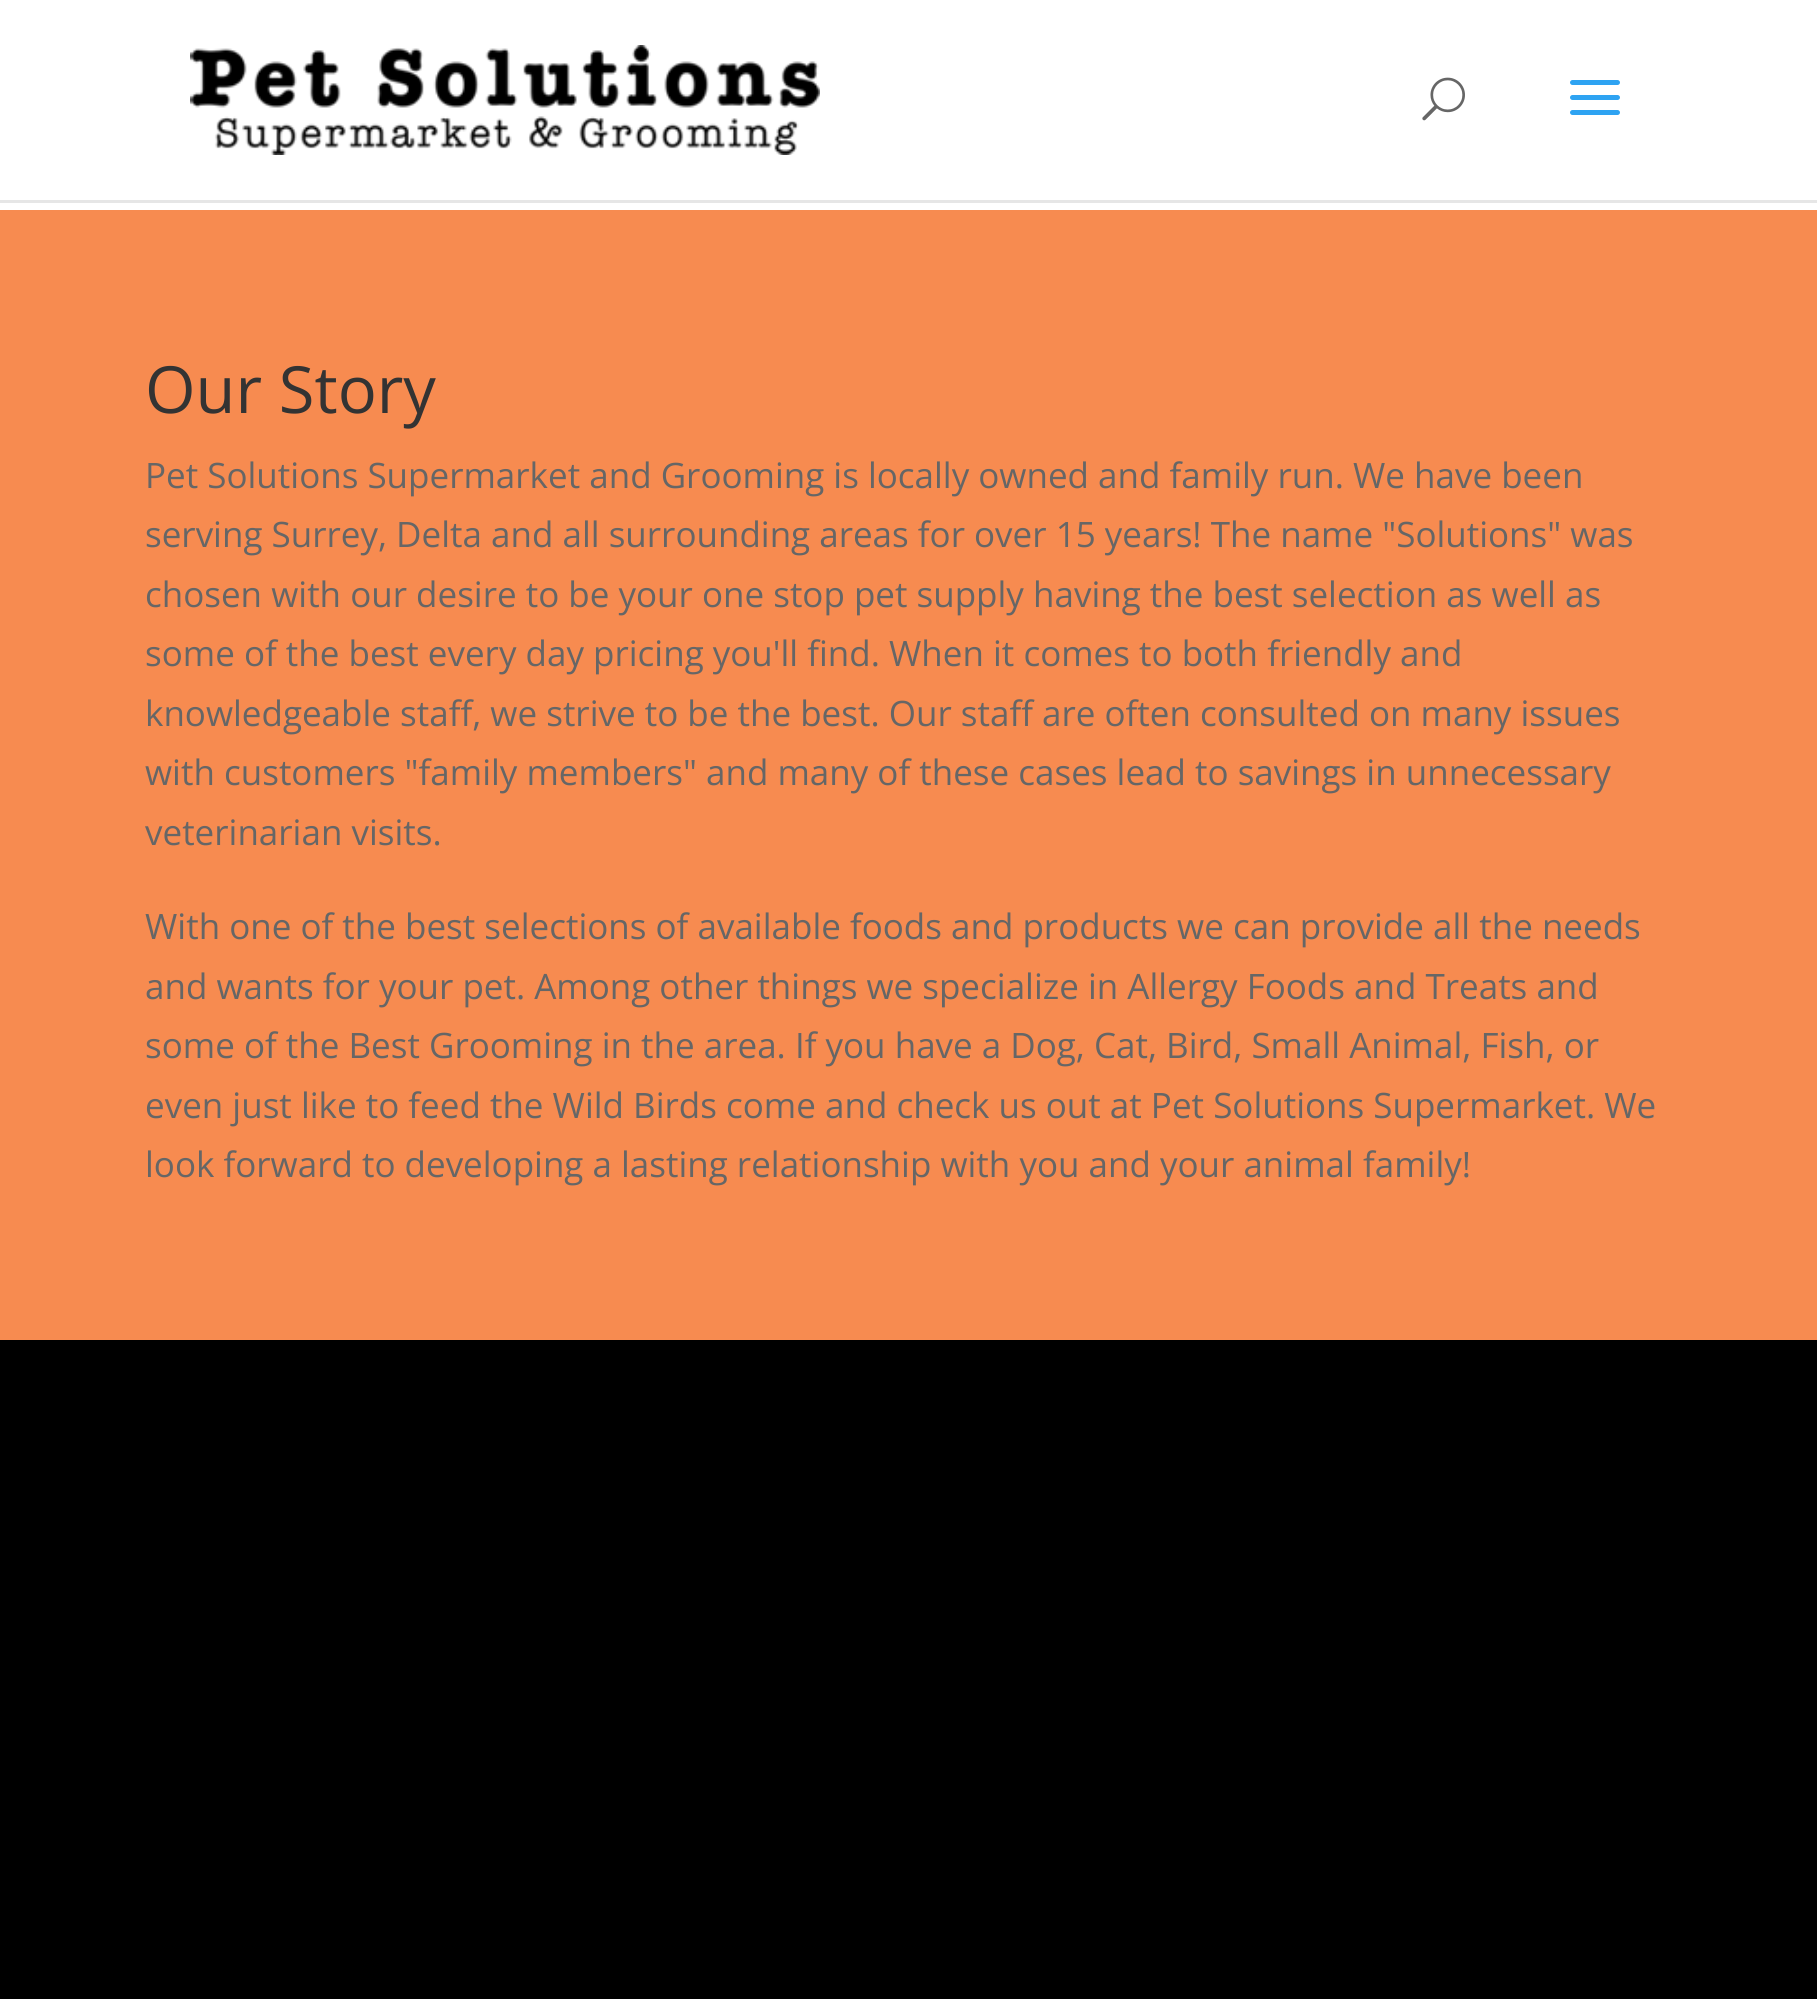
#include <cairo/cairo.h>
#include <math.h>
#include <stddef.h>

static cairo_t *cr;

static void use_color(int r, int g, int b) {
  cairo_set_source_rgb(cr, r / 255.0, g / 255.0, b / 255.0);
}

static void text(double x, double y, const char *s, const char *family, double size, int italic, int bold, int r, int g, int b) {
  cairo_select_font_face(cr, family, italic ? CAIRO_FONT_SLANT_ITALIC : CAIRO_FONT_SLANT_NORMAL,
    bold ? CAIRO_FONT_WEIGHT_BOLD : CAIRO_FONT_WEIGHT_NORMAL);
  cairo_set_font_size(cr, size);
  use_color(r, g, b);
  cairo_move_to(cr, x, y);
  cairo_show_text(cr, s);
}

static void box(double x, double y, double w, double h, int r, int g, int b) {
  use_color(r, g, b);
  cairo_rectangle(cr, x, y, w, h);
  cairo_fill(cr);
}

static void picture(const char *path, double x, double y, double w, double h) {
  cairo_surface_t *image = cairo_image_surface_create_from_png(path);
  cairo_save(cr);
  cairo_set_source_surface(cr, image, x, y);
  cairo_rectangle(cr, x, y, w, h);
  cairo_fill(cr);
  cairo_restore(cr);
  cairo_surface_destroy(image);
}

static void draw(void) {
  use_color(255, 255, 255);
  cairo_paint(cr);
  use_color(230, 230, 230);
  cairo_new_path(cr);
  cairo_move_to(cr, 0, 200);
  cairo_line_to(cr, 0, 203);
  cairo_line_to(cr, 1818, 203);
  cairo_line_to(cr, 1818, 3);
  cairo_line_to(cr, 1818, 200);
  cairo_close_path(cr);
  cairo_fill(cr);
  picture("img_01.png", 190, 45, 630, 110);
  picture("img_02.png", 1422, 77, 43, 44);
  picture("img_03.png", 1570, 80, 50, 35);
  box(0, 210, 1817, 1130, 247, 139, 80);
  box(0, 1340, 1817, 659, 0, 0, 0);
  text(145, 413, "Our Story", "Open Sans", 65, 0, 0, 51, 51, 51);
  text(145, 488, "Pet Solutions Supermarket and Grooming is locally owned and family run. We have been", "Open Sans", 35, 0, 0, 102, 102, 102);
  text(145, 547, "serving Surrey, Delta and all surrounding areas for over 15 years! The name \"Solutions\" was", "Open Sans", 35, 0, 0, 102, 102, 102);
  text(145, 607, "chosen with our desire to be your one stop pet supply having the best selection as well as", "Open Sans", 35, 0, 0, 102, 102, 102);
  text(145, 666, "some of the best every day pricing you'll find. When it comes to both friendly and", "Open Sans", 35, 0, 0, 102, 102, 102);
  text(145, 726, "knowledgeable staff, we strive to be the best. Our staff are often consulted on many issues", "Open Sans", 35, 0, 0, 102, 102, 102);
  text(145, 785, "with customers \"family members\" and many of these cases lead to savings in unnecessary", "Open Sans", 35, 0, 0, 102, 102, 102);
  text(145, 845, "veterinarian visits.", "Open Sans", 35, 0, 0, 102, 102, 102);
  text(145, 939, "With one of the best selections of available foods and products we can provide all the needs", "Open Sans", 35, 0, 0, 102, 102, 102);
  text(145, 999, "and wants for your pet. Among other things we specialize in Allergy Foods and Treats and", "Open Sans", 35, 0, 0, 102, 102, 102);
  text(145, 1058, "some of the Best Grooming in the area. If you have a Dog, Cat, Bird, Small Animal, Fish, or", "Open Sans", 35, 0, 0, 102, 102, 102);
  text(145, 1118, "even just like to feed the Wild Birds come and check us out at Pet Solutions Supermarket. We", "Open Sans", 35, 0, 0, 102, 102, 102);
  text(145, 1177, "look forward to developing a lasting relationship with you and your animal family!", "Open Sans", 35, 0, 0, 102, 102, 102);
}

int main(void) {
  cairo_surface_t *surface = cairo_image_surface_create(CAIRO_FORMAT_RGB24, 1817, 1999);
  cr = cairo_create(surface);
  cairo_font_options_t *options = cairo_font_options_create();
  cairo_font_options_set_hint_metrics(options, CAIRO_HINT_METRICS_OFF);
  cairo_font_options_set_hint_style(options, CAIRO_HINT_STYLE_NONE);
  cairo_set_font_options(cr, options);
  cairo_set_miter_limit(cr, 4);
  draw();
  cairo_surface_write_to_png(surface, "out.png");
  cairo_font_options_destroy(options);
  cairo_destroy(cr);
  cairo_surface_destroy(surface);
  return 0;
}
